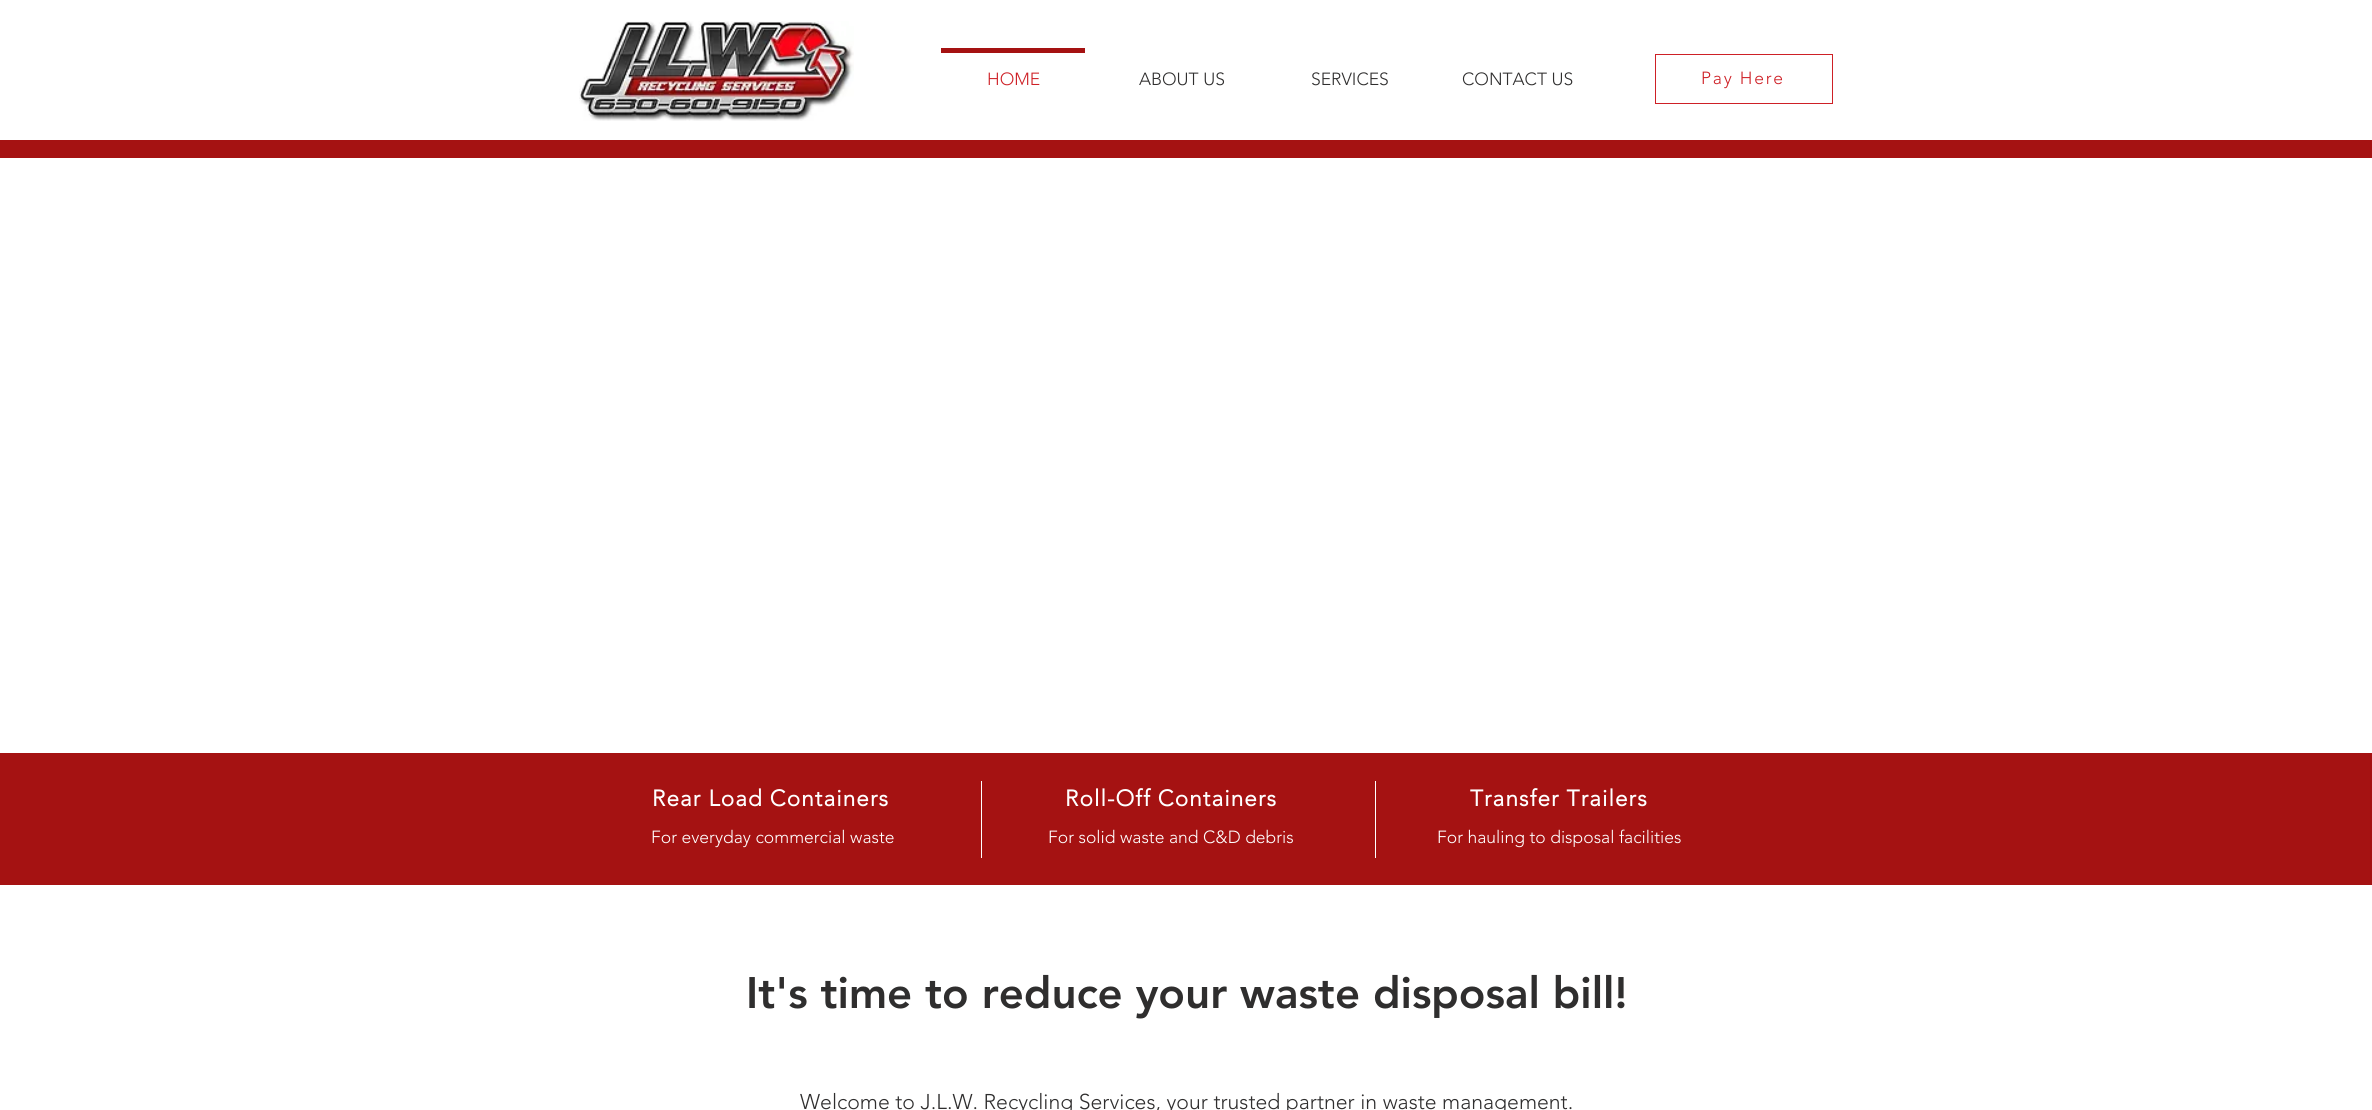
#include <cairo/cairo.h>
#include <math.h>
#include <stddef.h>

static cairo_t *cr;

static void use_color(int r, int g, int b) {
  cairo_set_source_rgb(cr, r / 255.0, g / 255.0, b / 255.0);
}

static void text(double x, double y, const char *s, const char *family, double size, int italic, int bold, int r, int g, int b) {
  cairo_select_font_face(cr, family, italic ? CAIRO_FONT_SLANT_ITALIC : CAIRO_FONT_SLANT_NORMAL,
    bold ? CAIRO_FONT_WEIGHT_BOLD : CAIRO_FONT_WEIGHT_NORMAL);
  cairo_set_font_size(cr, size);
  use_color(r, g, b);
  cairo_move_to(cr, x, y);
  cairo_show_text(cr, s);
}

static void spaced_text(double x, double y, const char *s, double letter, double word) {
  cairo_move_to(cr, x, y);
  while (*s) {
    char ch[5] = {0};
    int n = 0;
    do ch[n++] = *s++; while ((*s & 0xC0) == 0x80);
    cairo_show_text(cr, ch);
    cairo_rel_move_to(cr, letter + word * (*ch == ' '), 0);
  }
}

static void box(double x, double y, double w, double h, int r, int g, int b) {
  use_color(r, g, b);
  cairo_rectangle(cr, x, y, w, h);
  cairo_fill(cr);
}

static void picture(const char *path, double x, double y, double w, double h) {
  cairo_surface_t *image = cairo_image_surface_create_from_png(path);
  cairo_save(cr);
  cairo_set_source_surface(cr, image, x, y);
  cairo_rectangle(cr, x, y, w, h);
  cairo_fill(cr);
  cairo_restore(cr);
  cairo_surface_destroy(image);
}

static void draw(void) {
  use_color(255, 255, 255);
  cairo_paint(cr);
  picture("img_01.png", 579, 21, 275, 100);
  box(941, 48, 144, 5, 165, 18, 18);
  cairo_rectangle(cr, 1655.5, 54.5, 177, 49);
  use_color(206, 32, 38);
  cairo_set_line_width(cr, 1);
  cairo_stroke(cr);
  box(0, 140, 2372, 18, 165, 18, 18);
  box(0, 753, 2372, 132, 165, 18, 18);
  box(981, 781, 1, 77, 255, 255, 255);
  box(1375, 781, 1, 77, 255, 255, 255);
  text(987, 85, "HOME", "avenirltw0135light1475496 Light", 17.5, 0, 0, 206, 32, 38);
  text(1139, 85, "ABOUT US", "avenirltw0135light1475496 Light", 17.5, 0, 0, 47, 46, 46);
  text(1311, 85, "SERVICES", "avenirltw0135light1475496 Light", 17.5, 0, 0, 47, 46, 46);
  text(1462, 85, "CONTACT US", "avenirltw0135light1475496 Light", 17.5, 0, 0, 47, 46, 46);
  use_color(206, 32, 38);
  spaced_text(1701, 84, "Pay Here", 1.75, 0);
  cairo_select_font_face(cr, "avenirltw0135light1475496", CAIRO_FONT_SLANT_NORMAL, CAIRO_FONT_WEIGHT_BOLD);
  cairo_set_font_size(cr, 22.5);
  use_color(255, 255, 255);
  spaced_text(652, 806, "Rear Load Containers", 1.1, 0);
  spaced_text(1065, 806, "Roll-Off Containers", 1.1, 0);
  spaced_text(1470, 806, "Transfer Trailers", 1.1, 0);
  text(651, 843, "For everyday commercial waste", "avenirltw0135light1475496 Light", 17.5, 0, 0, 255, 255, 255);
  text(1048, 843, "For solid waste and C&D debris", "avenirltw0135light1475496 Light", 17.5, 0, 0, 255, 255, 255);
  text(1437, 843, "For hauling to disposal facilities", "avenirltw0135light1475496 Light", 17.5, 0, 0, 255, 255, 255);
  text(746, 1008, "It's time to reduce your waste disposal bill!", "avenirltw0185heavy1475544 Black", 43.75, 0, 0, 47, 46, 46);
  text(800, 1109, "Welcome to J.L.W. Recycling Services, your trusted partner in waste management.", "avenirltw0135light1475496 Light", 21.25, 0, 0, 47, 46, 46);
}

int main(void) {
  cairo_surface_t *surface = cairo_image_surface_create(CAIRO_FORMAT_RGB24, 2372, 1110);
  cr = cairo_create(surface);
  cairo_font_options_t *options = cairo_font_options_create();
  cairo_font_options_set_hint_metrics(options, CAIRO_HINT_METRICS_OFF);
  cairo_font_options_set_hint_style(options, CAIRO_HINT_STYLE_NONE);
  cairo_set_font_options(cr, options);
  cairo_set_miter_limit(cr, 4);
  draw();
  cairo_surface_write_to_png(surface, "out.png");
  cairo_font_options_destroy(options);
  cairo_destroy(cr);
  cairo_surface_destroy(surface);
  return 0;
}
